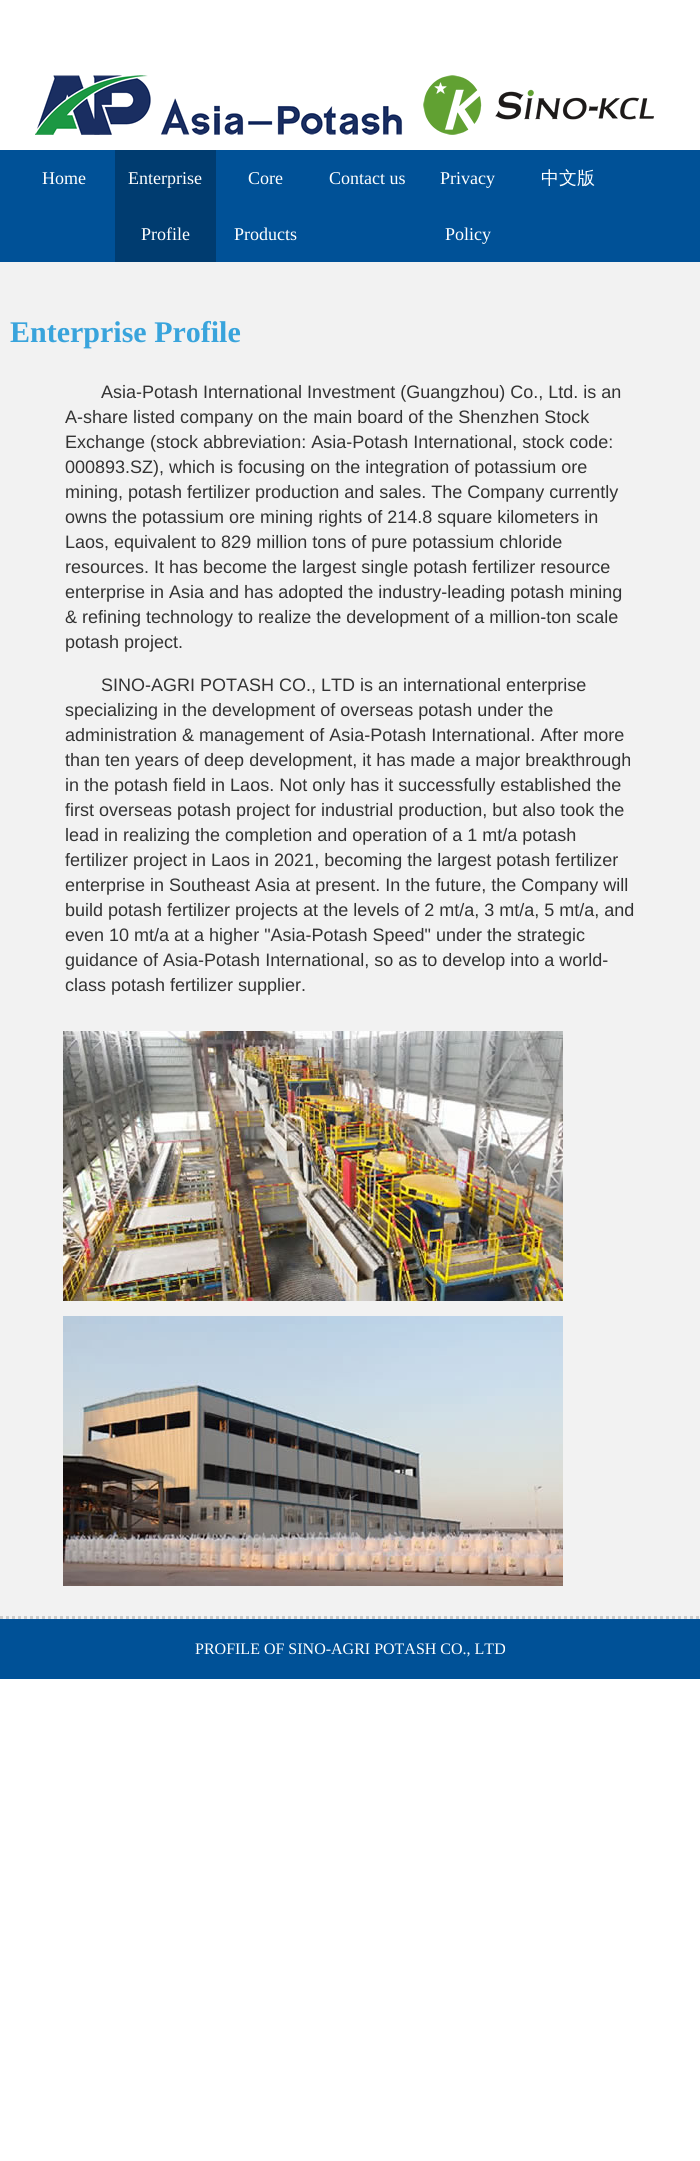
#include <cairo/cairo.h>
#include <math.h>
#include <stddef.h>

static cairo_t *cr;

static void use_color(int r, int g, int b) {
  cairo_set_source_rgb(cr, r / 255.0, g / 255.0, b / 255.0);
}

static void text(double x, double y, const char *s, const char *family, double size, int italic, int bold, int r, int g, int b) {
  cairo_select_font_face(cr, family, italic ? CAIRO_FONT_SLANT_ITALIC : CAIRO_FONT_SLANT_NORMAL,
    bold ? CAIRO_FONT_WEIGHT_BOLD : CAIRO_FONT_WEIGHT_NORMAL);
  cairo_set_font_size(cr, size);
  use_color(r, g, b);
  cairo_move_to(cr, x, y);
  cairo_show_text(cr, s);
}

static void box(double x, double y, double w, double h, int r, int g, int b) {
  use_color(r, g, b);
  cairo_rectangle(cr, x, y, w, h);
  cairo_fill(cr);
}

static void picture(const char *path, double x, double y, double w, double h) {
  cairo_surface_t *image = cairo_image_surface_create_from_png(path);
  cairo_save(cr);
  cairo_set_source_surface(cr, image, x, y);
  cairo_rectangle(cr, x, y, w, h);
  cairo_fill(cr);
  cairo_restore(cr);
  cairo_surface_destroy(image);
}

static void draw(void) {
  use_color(255, 255, 255);
  cairo_paint(cr);
  picture("img_01.png", 35, 75, 368, 60);
  picture("img_02.png", 423, 75, 231, 60);
  box(0, 150, 700, 112, 0, 81, 151);
  box(115, 150, 101, 112, 0, 60, 112);
  box(0, 262, 700, 1357, 242, 242, 242);
  cairo_new_path(cr);
  cairo_move_to(cr, 0, 1617.5);
  cairo_line_to(cr, 700, 1617.5);
  use_color(204, 204, 204);
  cairo_set_line_width(cr, 3);
  cairo_set_dash(cr, (double[]){3, 3}, 2, 0);
  cairo_stroke(cr);
  picture("img_03.png", 63, 1031, 500, 270);
  picture("img_04.png", 63, 1316, 500, 270);
  box(0, 1619, 700, 60, 0, 81, 151);
  text(42, 184, "Home", "Liberation Serif", 18, 0, 0, 255, 255, 255);
  text(128, 184, "Enterprise", "Liberation Serif", 18, 0, 0, 255, 255, 255);
  text(141, 240, "Profile", "Liberation Serif", 18, 0, 0, 255, 255, 255);
  text(248, 184, "Core", "Liberation Serif", 18, 0, 0, 255, 255, 255);
  text(234, 240, "Products", "Liberation Serif", 18, 0, 0, 255, 255, 255);
  text(329, 184, "Contact us", "Liberation Serif", 18, 0, 0, 255, 255, 255);
  text(440, 184, "Privacy", "Liberation Serif", 18, 0, 0, 255, 255, 255);
  text(445, 240, "Policy", "Liberation Serif", 18, 0, 0, 255, 255, 255);
  text(541, 184, "中文版", "WenQuanYi Zen Hei Medium", 18, 0, 0, 255, 255, 255);
  text(10, 342, "Enterprise Profile", "Liberation Serif", 30, 0, 1, 57, 164, 220);
  text(101, 398, "Asia-Potash International Investment (Guangzhou) Co., Ltd. is an", "Liberation Sans", 18, 0, 0, 51, 51, 51);
  text(65, 423, "A-share listed company on the main board of the Shenzhen Stock", "Liberation Sans", 18, 0, 0, 51, 51, 51);
  text(65, 448, "Exchange (stock abbreviation: Asia-Potash International, stock code:", "Liberation Sans", 18, 0, 0, 51, 51, 51);
  text(65, 473, "000893.SZ), which is focusing on the integration of potassium ore", "Liberation Sans", 18, 0, 0, 51, 51, 51);
  text(65, 498, "mining, potash fertilizer production and sales. The Company currently", "Liberation Sans", 18, 0, 0, 51, 51, 51);
  text(65, 523, "owns the potassium ore mining rights of 214.8 square kilometers in", "Liberation Sans", 18, 0, 0, 51, 51, 51);
  text(65, 548, "Laos, equivalent to 829 million tons of pure potassium chloride", "Liberation Sans", 18, 0, 0, 51, 51, 51);
  text(65, 573, "resources. It has become the largest single potash fertilizer resource", "Liberation Sans", 18, 0, 0, 51, 51, 51);
  text(65, 598, "enterprise in Asia and has adopted the industry-leading potash mining", "Liberation Sans", 18, 0, 0, 51, 51, 51);
  text(65, 623, "& refining technology to realize the development of a million-ton scale", "Liberation Sans", 18, 0, 0, 51, 51, 51);
  text(65, 648, "potash project.", "Liberation Sans", 18, 0, 0, 51, 51, 51);
  text(101, 691, "SINO-AGRI POTASH CO., LTD is an international enterprise", "Liberation Sans", 18, 0, 0, 51, 51, 51);
  text(65, 716, "specializing in the development of overseas potash under the", "Liberation Sans", 18, 0, 0, 51, 51, 51);
  text(65, 741, "administration & management of Asia-Potash International. After more", "Liberation Sans", 18, 0, 0, 51, 51, 51);
  text(65, 766, "than ten years of deep development, it has made a major breakthrough", "Liberation Sans", 18, 0, 0, 51, 51, 51);
  text(65, 791, "in the potash field in Laos. Not only has it successfully established the", "Liberation Sans", 18, 0, 0, 51, 51, 51);
  text(65, 816, "first overseas potash project for industrial production, but also took the", "Liberation Sans", 18, 0, 0, 51, 51, 51);
  text(65, 841, "lead in realizing the completion and operation of a 1 mt/a potash", "Liberation Sans", 18, 0, 0, 51, 51, 51);
  text(65, 866, "fertilizer project in Laos in 2021, becoming the largest potash fertilizer", "Liberation Sans", 18, 0, 0, 51, 51, 51);
  text(65, 891, "enterprise in Southeast Asia at present. In the future, the Company will", "Liberation Sans", 18, 0, 0, 51, 51, 51);
  text(65, 916, "build potash fertilizer projects at the levels of 2 mt/a, 3 mt/a, 5 mt/a, and", "Liberation Sans", 18, 0, 0, 51, 51, 51);
  text(65, 941, "even 10 mt/a at a higher \"Asia-Potash Speed\" under the strategic", "Liberation Sans", 18, 0, 0, 51, 51, 51);
  text(65, 966, "guidance of Asia-Potash International, so as to develop into a world-", "Liberation Sans", 18, 0, 0, 51, 51, 51);
  text(65, 991, "class potash fertilizer supplier.", "Liberation Sans", 18, 0, 0, 51, 51, 51);
  text(195, 1654, "PROFILE OF SINO-AGRI POTASH CO., LTD", "Liberation Serif", 16, 0, 0, 255, 255, 255);
}

int main(void) {
  cairo_surface_t *surface = cairo_image_surface_create(CAIRO_FORMAT_RGB24, 700, 2161);
  cr = cairo_create(surface);
  cairo_font_options_t *options = cairo_font_options_create();
  cairo_font_options_set_hint_metrics(options, CAIRO_HINT_METRICS_OFF);
  cairo_font_options_set_hint_style(options, CAIRO_HINT_STYLE_NONE);
  cairo_set_font_options(cr, options);
  cairo_set_miter_limit(cr, 4);
  draw();
  cairo_surface_write_to_png(surface, "out.png");
  cairo_font_options_destroy(options);
  cairo_destroy(cr);
  cairo_surface_destroy(surface);
  return 0;
}
